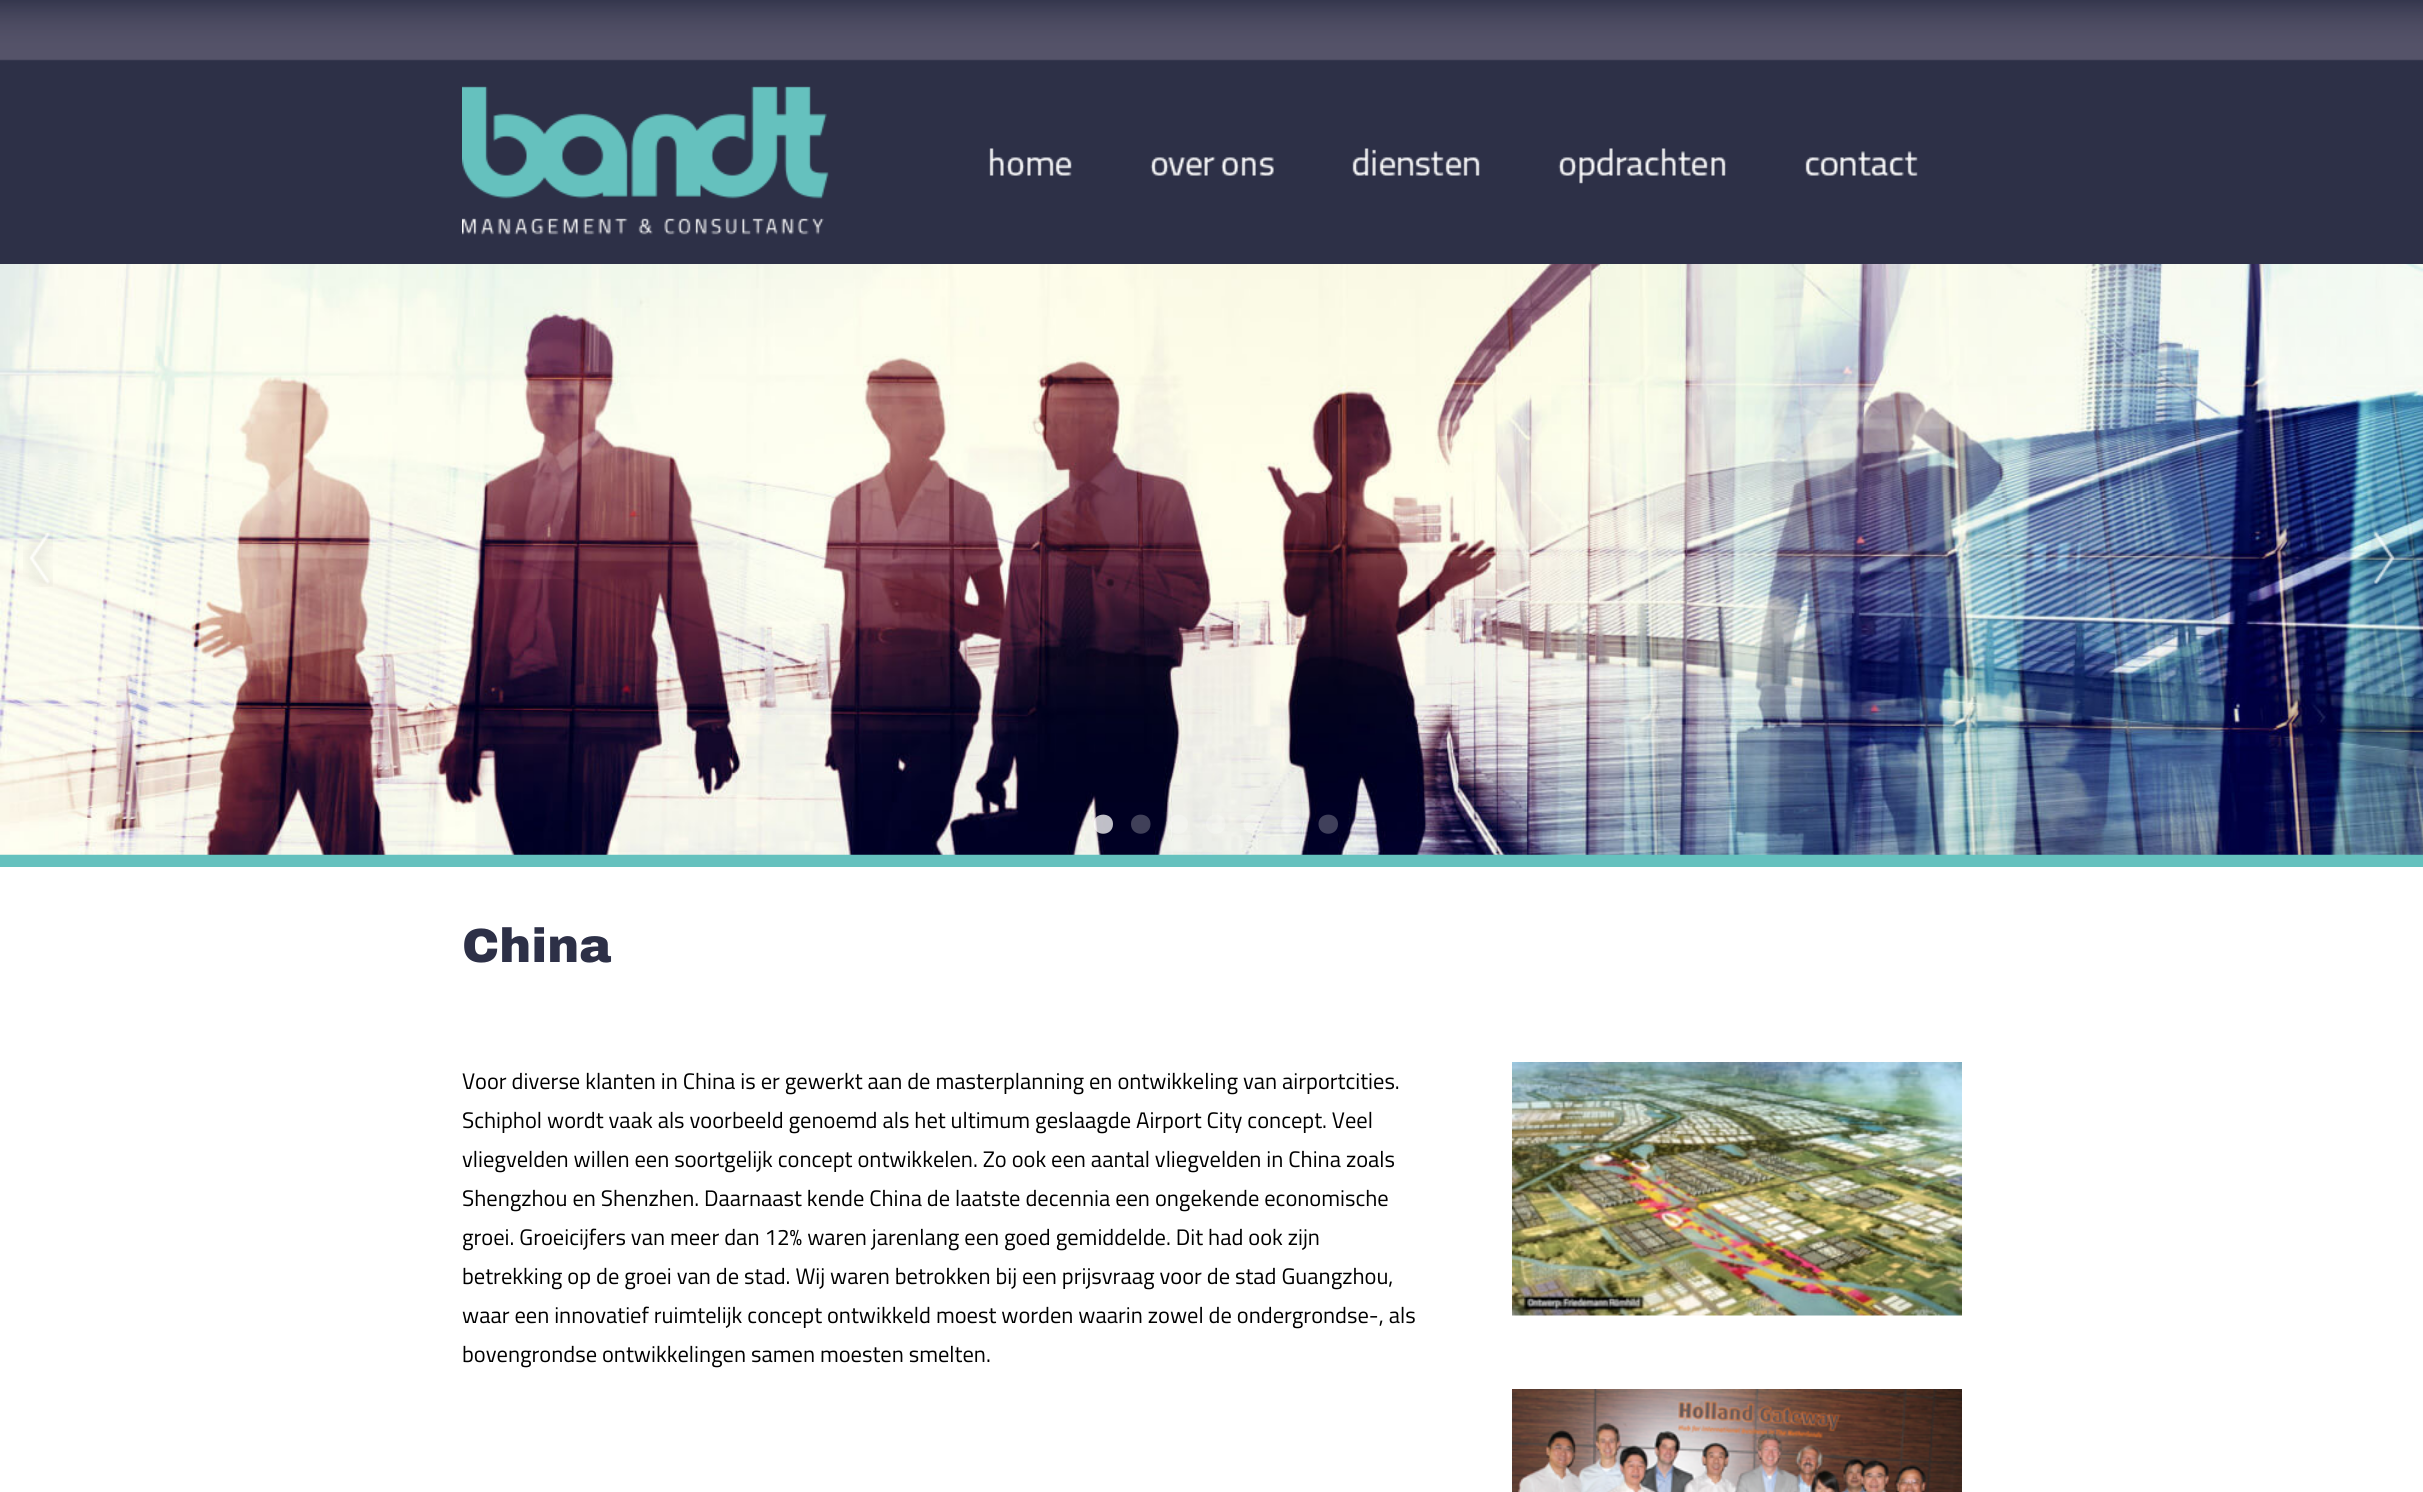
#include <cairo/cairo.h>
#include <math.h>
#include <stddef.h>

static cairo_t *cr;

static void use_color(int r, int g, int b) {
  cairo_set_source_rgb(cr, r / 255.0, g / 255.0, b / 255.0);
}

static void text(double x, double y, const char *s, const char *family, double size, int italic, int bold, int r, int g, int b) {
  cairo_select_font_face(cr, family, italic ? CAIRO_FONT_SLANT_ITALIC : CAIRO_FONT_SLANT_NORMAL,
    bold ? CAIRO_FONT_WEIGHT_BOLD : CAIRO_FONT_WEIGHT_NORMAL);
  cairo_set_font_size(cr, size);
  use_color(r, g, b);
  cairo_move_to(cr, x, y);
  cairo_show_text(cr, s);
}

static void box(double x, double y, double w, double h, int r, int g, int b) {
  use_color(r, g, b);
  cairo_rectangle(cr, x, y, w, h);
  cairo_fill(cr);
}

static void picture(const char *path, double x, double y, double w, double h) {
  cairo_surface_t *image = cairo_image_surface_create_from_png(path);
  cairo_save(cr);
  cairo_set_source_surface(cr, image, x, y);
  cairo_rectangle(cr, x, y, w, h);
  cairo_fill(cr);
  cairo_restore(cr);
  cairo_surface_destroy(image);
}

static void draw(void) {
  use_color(255, 255, 255);
  cairo_paint(cr);
  picture("img_01.png", 0, 0, 2423, 264);
  box(0, 854, 2423, 13, 101, 193, 190);
  picture("img_02.png", 462, 86, 367, 149);
  picture("img_03.png", 989, 148, 83, 28);
  picture("img_04.png", 1150, 156, 124, 20);
  picture("img_05.png", 1352, 148, 128, 28);
  picture("img_06.png", 1558, 148, 168, 36);
  picture("img_07.png", 1805, 151, 113, 25);
  picture("img_08.png", 0, 264, 2423, 591);
  picture("img_09.png", 23, 532, 30, 55);
  picture("img_10.png", 2371, 532, 30, 55);
  cairo_set_source_rgba(cr, 1, 1, 1, 0.75);
  cairo_new_path(cr);
  cairo_move_to(cr, 1113, 824);
  cairo_curve_to(cr, 1113, 811.5, 1093.5, 811.5, 1093.5, 824);
  cairo_curve_to(cr, 1093.5, 837, 1113, 837, 1113, 824);
  cairo_close_path(cr);
  cairo_fill(cr);
  use_color(64, 64, 89);
  cairo_new_path(cr);
  cairo_move_to(cr, 1150.5, 824);
  cairo_curve_to(cr, 1150.5, 811.5, 1131, 811.5, 1131, 824);
  cairo_curve_to(cr, 1131, 837, 1150.5, 837, 1150.5, 824);
  cairo_close_path(cr);
  cairo_fill(cr);
  cairo_set_source_rgba(cr, 1, 1, 1, 0.25);
  cairo_new_path(cr);
  cairo_move_to(cr, 1188, 824);
  cairo_curve_to(cr, 1188, 811.5, 1168.5, 811.5, 1168.5, 824);
  cairo_curve_to(cr, 1168.5, 837, 1188, 837, 1188, 824);
  cairo_close_path(cr);
  cairo_move_to(cr, 1225.5, 824);
  cairo_curve_to(cr, 1225.5, 811.5, 1206, 811.5, 1206, 824);
  cairo_curve_to(cr, 1206, 837, 1225.5, 837, 1225.5, 824);
  cairo_close_path(cr);
  cairo_fill(cr);
  cairo_new_path(cr);
  cairo_move_to(cr, 1263, 824);
  cairo_curve_to(cr, 1263, 811.5, 1243.5, 811.5, 1243.5, 824);
  cairo_curve_to(cr, 1243.5, 837, 1263, 837, 1263, 824);
  cairo_close_path(cr);
  cairo_move_to(cr, 1300.5, 824);
  cairo_curve_to(cr, 1300.5, 811.5, 1281, 811.5, 1281, 824);
  cairo_curve_to(cr, 1281, 837, 1300.5, 837, 1300.5, 824);
  cairo_close_path(cr);
  cairo_fill(cr);
  use_color(64, 64, 91);
  cairo_new_path(cr);
  cairo_move_to(cr, 1338, 824);
  cairo_curve_to(cr, 1338, 811.5, 1318.5, 811.5, 1318.5, 824);
  cairo_curve_to(cr, 1318.5, 837, 1338, 837, 1338, 824);
  cairo_close_path(cr);
  cairo_fill(cr);
  picture("img_11.png", 1512, 1062, 450, 254);
  picture("img_12.png", 1512, 1389, 450, 103);
  text(462, 962, "China", "Archivo Black Black", 48, 0, 0, 45, 48, 71);
  text(462, 1089, "Voor diverse klanten in China is er gewerkt aan de masterplanning en ontwikkeling van airportcities.", "Titillium Web", 22.5, 0, 0, 0, 0, 0);
  text(462, 1128, "Schiphol wordt vaak als voorbeeld genoemd als het ultimum geslaagde Airport City concept. Veel", "Titillium Web", 22.5, 0, 0, 0, 0, 0);
  text(462, 1167, "vliegvelden willen een soortgelijk concept ontwikkelen. Zo ook een aantal vliegvelden in China zoals", "Titillium Web", 22.5, 0, 0, 0, 0, 0);
  text(462, 1206, "Shengzhou en Shenzhen. Daarnaast kende China de laatste decennia een ongekende economische", "Titillium Web", 22.5, 0, 0, 0, 0, 0);
  text(462, 1245, "groei. Groeicijfers van meer dan 12% waren jarenlang een goed gemiddelde. Dit had ook zijn", "Titillium Web", 22.5, 0, 0, 0, 0, 0);
  text(462, 1284, "betrekking op de groei van de stad. Wij waren betrokken bij een prijsvraag voor de stad Guangzhou,", "Titillium Web", 22.5, 0, 0, 0, 0, 0);
  text(462, 1323, "waar een innovatief ruimtelijk concept ontwikkeld moest worden waarin zowel de ondergrondse-, als", "Titillium Web", 22.5, 0, 0, 0, 0, 0);
  text(462, 1362, "bovengrondse ontwikkelingen samen moesten smelten.", "Titillium Web", 22.5, 0, 0, 0, 0, 0);
}

int main(void) {
  cairo_surface_t *surface = cairo_image_surface_create(CAIRO_FORMAT_RGB24, 2423, 1492);
  cr = cairo_create(surface);
  cairo_font_options_t *options = cairo_font_options_create();
  cairo_font_options_set_hint_metrics(options, CAIRO_HINT_METRICS_OFF);
  cairo_font_options_set_hint_style(options, CAIRO_HINT_STYLE_NONE);
  cairo_set_font_options(cr, options);
  cairo_set_miter_limit(cr, 4);
  draw();
  cairo_surface_write_to_png(surface, "out.png");
  cairo_font_options_destroy(options);
  cairo_destroy(cr);
  cairo_surface_destroy(surface);
  return 0;
}
